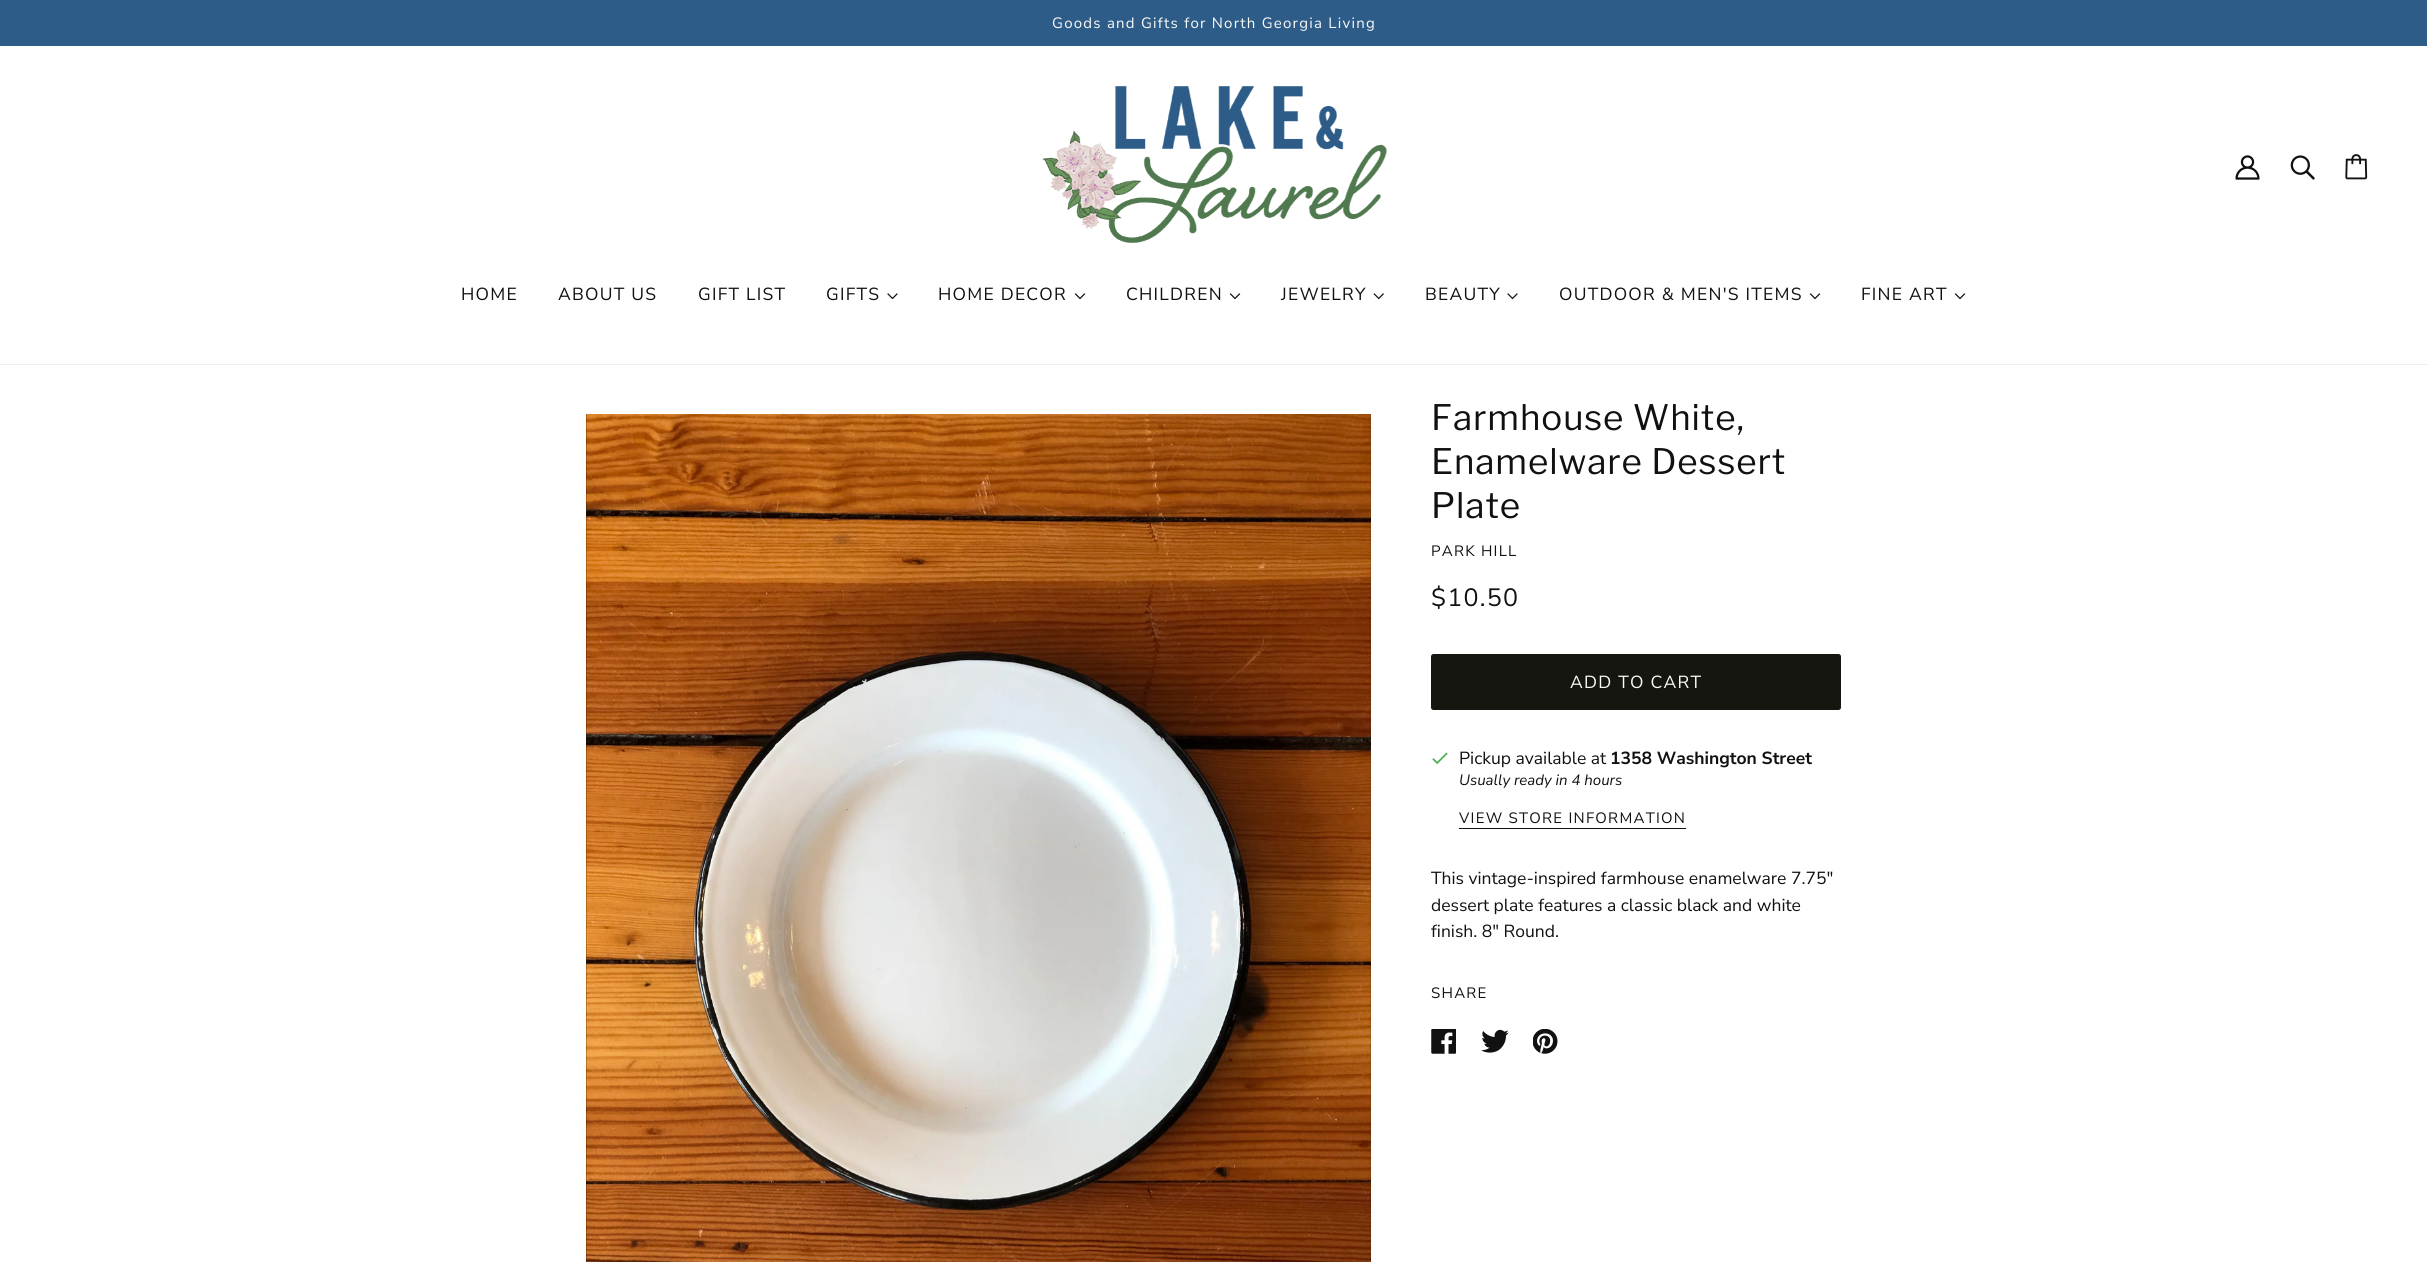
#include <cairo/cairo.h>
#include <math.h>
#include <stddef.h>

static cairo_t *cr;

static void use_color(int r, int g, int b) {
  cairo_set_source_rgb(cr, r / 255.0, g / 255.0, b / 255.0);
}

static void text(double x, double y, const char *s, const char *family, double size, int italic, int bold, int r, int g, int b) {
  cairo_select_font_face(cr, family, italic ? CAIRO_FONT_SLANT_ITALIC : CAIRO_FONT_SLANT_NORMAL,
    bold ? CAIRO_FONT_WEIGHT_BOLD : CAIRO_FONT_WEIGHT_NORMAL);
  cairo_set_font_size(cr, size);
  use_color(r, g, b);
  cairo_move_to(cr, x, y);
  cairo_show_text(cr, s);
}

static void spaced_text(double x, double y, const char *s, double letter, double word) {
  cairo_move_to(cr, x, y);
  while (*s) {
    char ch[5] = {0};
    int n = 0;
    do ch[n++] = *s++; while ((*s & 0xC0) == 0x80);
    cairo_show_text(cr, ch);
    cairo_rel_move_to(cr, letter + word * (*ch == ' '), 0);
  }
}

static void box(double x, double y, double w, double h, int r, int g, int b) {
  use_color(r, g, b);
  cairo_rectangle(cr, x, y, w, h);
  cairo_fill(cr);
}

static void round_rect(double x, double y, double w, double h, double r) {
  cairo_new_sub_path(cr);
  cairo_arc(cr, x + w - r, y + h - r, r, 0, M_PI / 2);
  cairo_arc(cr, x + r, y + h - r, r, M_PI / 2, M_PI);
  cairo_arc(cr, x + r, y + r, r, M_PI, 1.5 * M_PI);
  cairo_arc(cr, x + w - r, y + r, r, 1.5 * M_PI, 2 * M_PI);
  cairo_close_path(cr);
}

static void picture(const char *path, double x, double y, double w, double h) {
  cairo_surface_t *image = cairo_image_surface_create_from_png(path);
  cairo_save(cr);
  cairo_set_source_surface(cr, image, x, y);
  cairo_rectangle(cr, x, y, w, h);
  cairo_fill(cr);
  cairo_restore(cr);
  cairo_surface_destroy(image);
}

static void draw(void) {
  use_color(255, 255, 255);
  cairo_paint(cr);
  box(0, 0, 2427, 46, 45, 92, 136);
  box(0, 364, 2427, 1, 238, 238, 238);
  picture("img_01.png", 1042, 86, 345, 157);
  picture("img_02.png", 2235, 155, 25, 25);
  picture("img_03.png", 2290, 155, 25, 25);
  picture("img_04.png", 2345, 154, 23, 26);
  picture("img_05.png", 887, 293, 11, 7);
  picture("img_06.png", 1074, 293, 12, 7);
  picture("img_06.png", 1229, 293, 12, 7);
  picture("img_07.png", 1373, 293, 11, 7);
  picture("img_05.png", 1507, 293, 11, 7);
  picture("img_06.png", 1809, 293, 12, 7);
  picture("img_06.png", 1954, 293, 12, 7);
  picture("img_08.png", 586, 414, 785, 848);
  use_color(22, 22, 16);
  round_rect(1431, 654, 410, 56, 2.5);
  cairo_fill(cr);
  picture("img_09.png", 1432, 752, 16, 13);
  box(1459, 828, 227, 1, 17, 17, 17);
  picture("img_10.png", 1431, 1029, 25, 25);
  picture("img_11.png", 1481, 1029, 28, 24);
  picture("img_12.png", 1533, 1029, 25, 25);
  cairo_select_font_face(cr, "Nunito Sans", CAIRO_FONT_SLANT_NORMAL, CAIRO_FONT_WEIGHT_NORMAL);
  cairo_set_font_size(cr, 15);
  use_color(250, 250, 250);
  spaced_text(1052, 28, "Goods and Gifts for North Georgia Living", 1.25, 0);
  cairo_set_font_size(cr, 17.5);
  use_color(17, 17, 17);
  spaced_text(461, 300, "HOME", 1.25, 0);
  spaced_text(558, 300, "ABOUT US", 1.25, 0);
  spaced_text(698, 300, "GIFT LIST", 1.25, 0);
  spaced_text(826, 300, "GIFTS", 1.25, 0);
  spaced_text(938, 300, "HOME DECOR", 1.25, 0);
  spaced_text(1126, 300, "CHILDREN", 1.25, 0);
  spaced_text(1281, 300, "JEWELRY", 1.25, 0);
  spaced_text(1425, 300, "BEAUTY", 1.25, 0);
  spaced_text(1559, 300, "OUTDOOR & MEN'S ITEMS", 1.25, 0);
  spaced_text(1861, 300, "FINE ART", 1.25, 0);
  cairo_select_font_face(cr, "Libre Franklin", CAIRO_FONT_SLANT_NORMAL, CAIRO_FONT_WEIGHT_NORMAL);
  cairo_set_font_size(cr, 35);
  spaced_text(1431, 430, "Farmhouse White,", 0.9, 0);
  spaced_text(1431, 474, "Enamelware Dessert", 0.9, 0);
  spaced_text(1431, 518, "Plate", 0.9, 0);
  cairo_select_font_face(cr, "Nunito Sans", CAIRO_FONT_SLANT_NORMAL, CAIRO_FONT_WEIGHT_NORMAL);
  cairo_set_font_size(cr, 15);
  spaced_text(1431, 556, "PARK HILL", 1.25, 0);
  cairo_set_font_size(cr, 25);
  spaced_text(1431, 606, "$10.50", 1.25, 0);
  cairo_set_font_size(cr, 17.5);
  use_color(250, 250, 250);
  spaced_text(1570, 688, "ADD TO CART", 1.25, 0);
  text(1459, 764, "Pickup available at", "Nunito Sans", 17.5, 0, 0, 17, 17, 17);
  text(1610, 764, "1358 Washington Street", "Nunito Sans", 17.5, 0, 1, 17, 17, 17);
  text(1459, 785, "Usually ready in 4 hours", "Nunito Sans", 15, 1, 0, 17, 17, 17);
  cairo_select_font_face(cr, "Nunito Sans", CAIRO_FONT_SLANT_NORMAL, CAIRO_FONT_WEIGHT_NORMAL);
  spaced_text(1459, 823, "VIEW STORE INFORMATION", 1.25, 0);
  text(1431, 884, "This vintage-inspired farmhouse enamelware 7.75\"", "Nunito Sans", 17.5, 0, 0, 17, 17, 17);
  text(1431, 911, "dessert plate features a classic black and white", "Nunito Sans", 17.5, 0, 0, 17, 17, 17);
  text(1431, 937, "finish. 8\" Round.", "Nunito Sans", 17.5, 0, 0, 17, 17, 17);
  cairo_set_font_size(cr, 15);
  spaced_text(1431, 998, "SHARE", 1.25, 0);
}

int main(void) {
  cairo_surface_t *surface = cairo_image_surface_create(CAIRO_FORMAT_RGB24, 2427, 1262);
  cr = cairo_create(surface);
  cairo_font_options_t *options = cairo_font_options_create();
  cairo_font_options_set_hint_metrics(options, CAIRO_HINT_METRICS_OFF);
  cairo_font_options_set_hint_style(options, CAIRO_HINT_STYLE_NONE);
  cairo_set_font_options(cr, options);
  cairo_set_miter_limit(cr, 4);
  draw();
  cairo_surface_write_to_png(surface, "out.png");
  cairo_font_options_destroy(options);
  cairo_destroy(cr);
  cairo_surface_destroy(surface);
  return 0;
}
